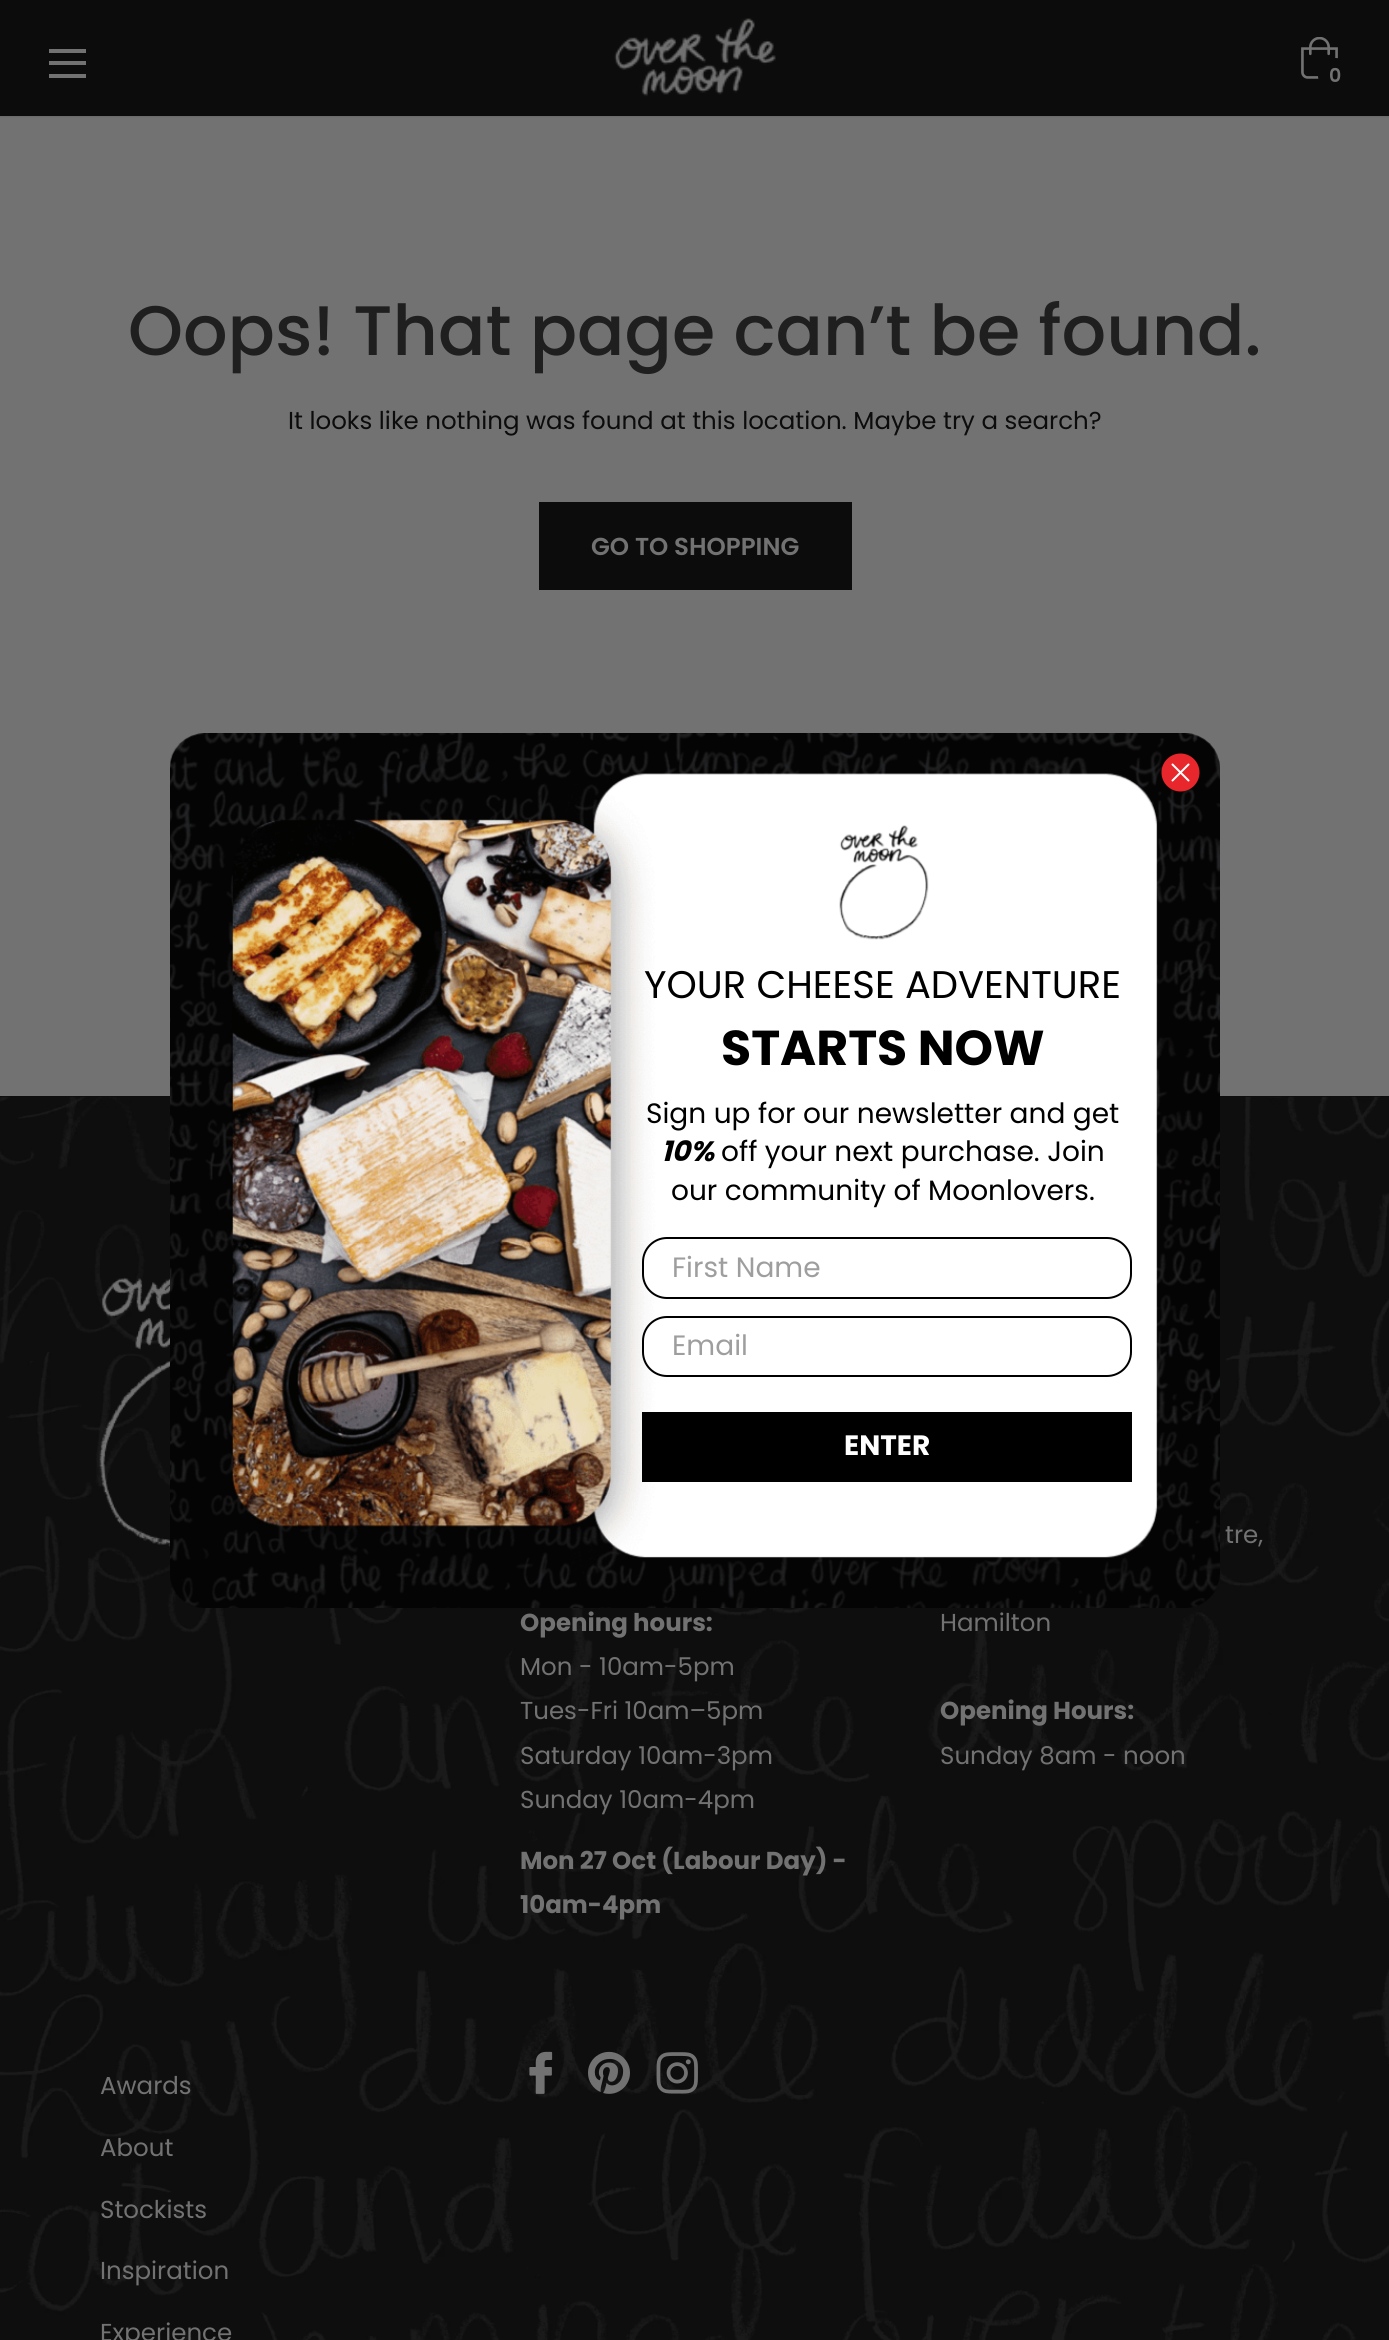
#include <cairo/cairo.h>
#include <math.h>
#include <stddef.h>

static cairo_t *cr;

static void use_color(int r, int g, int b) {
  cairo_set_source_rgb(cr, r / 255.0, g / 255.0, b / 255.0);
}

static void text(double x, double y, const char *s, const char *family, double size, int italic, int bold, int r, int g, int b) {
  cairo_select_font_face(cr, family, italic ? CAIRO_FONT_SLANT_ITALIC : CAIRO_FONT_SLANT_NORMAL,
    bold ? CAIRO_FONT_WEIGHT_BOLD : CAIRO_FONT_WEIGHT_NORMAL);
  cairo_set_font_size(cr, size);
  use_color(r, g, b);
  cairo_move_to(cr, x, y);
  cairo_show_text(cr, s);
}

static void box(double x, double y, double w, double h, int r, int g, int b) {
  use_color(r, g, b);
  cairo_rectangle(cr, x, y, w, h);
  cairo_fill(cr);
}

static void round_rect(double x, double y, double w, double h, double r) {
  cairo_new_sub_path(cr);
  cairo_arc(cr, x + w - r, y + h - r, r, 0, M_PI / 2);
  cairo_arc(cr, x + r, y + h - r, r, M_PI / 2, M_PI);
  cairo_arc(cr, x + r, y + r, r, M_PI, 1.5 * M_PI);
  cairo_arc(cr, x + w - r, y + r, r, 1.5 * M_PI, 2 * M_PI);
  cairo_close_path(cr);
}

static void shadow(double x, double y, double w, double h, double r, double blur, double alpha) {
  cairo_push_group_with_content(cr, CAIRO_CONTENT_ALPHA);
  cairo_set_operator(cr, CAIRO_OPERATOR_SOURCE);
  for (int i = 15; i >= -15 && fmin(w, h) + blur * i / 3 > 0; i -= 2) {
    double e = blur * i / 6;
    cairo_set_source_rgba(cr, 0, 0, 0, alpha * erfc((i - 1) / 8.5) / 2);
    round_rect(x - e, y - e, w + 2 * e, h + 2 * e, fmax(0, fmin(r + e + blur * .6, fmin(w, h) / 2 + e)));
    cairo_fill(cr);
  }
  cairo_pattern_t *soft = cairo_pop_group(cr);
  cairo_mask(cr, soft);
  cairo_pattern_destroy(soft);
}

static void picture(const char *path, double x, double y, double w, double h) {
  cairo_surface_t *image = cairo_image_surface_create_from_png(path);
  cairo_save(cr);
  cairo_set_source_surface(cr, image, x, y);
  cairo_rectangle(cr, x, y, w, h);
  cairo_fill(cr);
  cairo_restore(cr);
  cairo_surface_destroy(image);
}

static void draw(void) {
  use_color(114, 114, 114);
  cairo_paint(cr);
  use_color(12, 12, 12);
  shadow(0, 0, 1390, 116, 0, 1, 0.2);
  box(0, 0, 1389, 116, 12, 12, 12);
  box(49, 49, 37, 4, 114, 114, 114);
  box(49, 61, 37, 4, 114, 114, 114);
  box(49, 74, 37, 4, 114, 114, 114);
  picture("img_01.png", 614, 18, 162, 79);
  picture("img_02.png", 1301, 37, 37, 42);
  use_color(12, 12, 12);
  cairo_arc(cr, 1335.5, 75.5, 17.5, 0, 2 * M_PI);
  cairo_fill(cr);
  box(539, 502, 313, 88, 12, 12, 12);
  box(0, 1096, 1389, 1, 12, 12, 12);
  picture("img_03.png", 0, 1096, 1389, 1244);
  picture("img_04.png", 99, 1277, 71, 270);
  picture("img_05.png", 529, 2051, 24, 43);
  picture("img_06.png", 588, 2051, 42, 43);
  picture("img_07.png", 656, 2052, 42, 42);
  picture("img_08.png", 170, 733, 1050, 875);
  use_color(231, 39, 43);
  cairo_arc(cr, 1180.5, 772.5, 19, 0, 2 * M_PI);
  cairo_fill(cr);
  cairo_new_path(cr);
  cairo_move_to(cr, 1172.5, 764.5);
  cairo_line_to(cr, 1188.5, 780.5);
  cairo_move_to(cr, 1172.5, 780.5);
  cairo_line_to(cr, 1188.5, 764.5);
  cairo_close_path(cr);
  use_color(255, 255, 255);
  cairo_set_line_cap(cr, CAIRO_LINE_CAP_ROUND);
  cairo_set_line_join(cr, CAIRO_LINE_JOIN_ROUND);
  cairo_stroke(cr);
  picture("img_09.png", 839, 825, 90, 115);
  round_rect(643, 1238, 488, 60, 24);
  cairo_fill_preserve(cr);
  use_color(0, 0, 0);
  cairo_set_line_cap(cr, CAIRO_LINE_CAP_BUTT);
  cairo_set_line_join(cr, CAIRO_LINE_JOIN_MITER);
  cairo_stroke(cr);
  use_color(255, 255, 255);
  round_rect(643, 1317, 488, 59, 24);
  cairo_fill_preserve(cr);
  use_color(0, 0, 0);
  cairo_stroke(cr);
  box(642, 1412, 490, 70, 0, 0, 0);
  text(1329, 82, "0", "Poppins SemiBold", 19, 0, 0, 114, 114, 114);
  text(128, 355, "Oops! That page can’t be found.", "Poppins Medium", 70, 0, 0, 31, 31, 31);
  text(288, 429, "It looks like nothing was found at this location. Maybe try a search?", "Poppins", 24.5, 0, 0, 12, 12, 12);
  text(591, 555, "GO TO SHOPPING", "Poppins SemiBold", 24.5, 0, 0, 114, 114, 114);
  text(520, 1631, "Opening hours:", "Poppins", 24.5, 0, 1, 114, 114, 114);
  text(520, 1675, "Mon - 10am-5pm", "Poppins", 24.5, 0, 0, 114, 114, 114);
  text(520, 1719, "Tues-Fri 10am–5pm", "Poppins", 24.5, 0, 0, 114, 114, 114);
  text(520, 1764, "Saturday 10am-3pm", "Poppins", 24.5, 0, 0, 114, 114, 114);
  text(520, 1808, "Sunday 10am-4pm", "Poppins", 24.5, 0, 0, 114, 114, 114);
  text(520, 1869, "Mon 27 Oct (Labour Day) -", "Poppins", 24.5, 0, 1, 114, 114, 114);
  text(520, 1913, "10am-4pm", "Poppins", 24.5, 0, 1, 114, 114, 114);
  text(1225, 1543, "tre,", "Poppins", 24.5, 0, 0, 114, 114, 114);
  text(940, 1631, "Hamilton", "Poppins", 24.5, 0, 0, 114, 114, 114);
  text(940, 1719, "Opening Hours:", "Poppins", 24.5, 0, 1, 114, 114, 114);
  text(940, 1764, "Sunday 8am - noon", "Poppins", 24.5, 0, 0, 114, 114, 114);
  text(100, 2094, "Awards", "Poppins", 24.5, 0, 0, 114, 114, 114);
  text(100, 2156, "About", "Poppins", 24.5, 0, 0, 114, 114, 114);
  text(100, 2218, "Stockists", "Poppins", 24.5, 0, 0, 114, 114, 114);
  text(100, 2279, "Inspiration", "Poppins", 24.5, 0, 0, 114, 114, 114);
  text(100, 2341, "Experience", "Poppins", 24.5, 0, 0, 114, 114, 114);
  text(644, 998, "YOUR CHEESE ADVENTURE", "Poppins", 38.5, 0, 0, 0, 0, 0);
  text(721, 1065, "STARTS NOW", "Poppins", 49, 0, 1, 0, 0, 0);
  text(646, 1123, "Sign up for our newsletter and get", "Poppins", 28, 0, 0, 0, 0, 0);
  text(661, 1161, "10%", "Poppins", 28, 1, 1, 0, 0, 0);
  text(721, 1161, "off your next purchase. Join", "Poppins", 28, 0, 0, 0, 0, 0);
  text(671, 1200, "our community of Moonlovers.", "Poppins", 28, 0, 0, 0, 0, 0);
  text(672, 1277, "First Name", "Poppins", 28, 0, 0, 158, 158, 158);
  text(672, 1355, "Email", "Poppins", 28, 0, 0, 158, 158, 158);
  text(844, 1455, "ENTER", "Poppins", 28, 0, 1, 255, 255, 255);
}

int main(void) {
  cairo_surface_t *surface = cairo_image_surface_create(CAIRO_FORMAT_RGB24, 1389, 2340);
  cr = cairo_create(surface);
  cairo_font_options_t *options = cairo_font_options_create();
  cairo_font_options_set_hint_metrics(options, CAIRO_HINT_METRICS_OFF);
  cairo_font_options_set_hint_style(options, CAIRO_HINT_STYLE_NONE);
  cairo_set_font_options(cr, options);
  cairo_set_miter_limit(cr, 4);
  draw();
  cairo_surface_write_to_png(surface, "out.png");
  cairo_font_options_destroy(options);
  cairo_destroy(cr);
  cairo_surface_destroy(surface);
  return 0;
}
